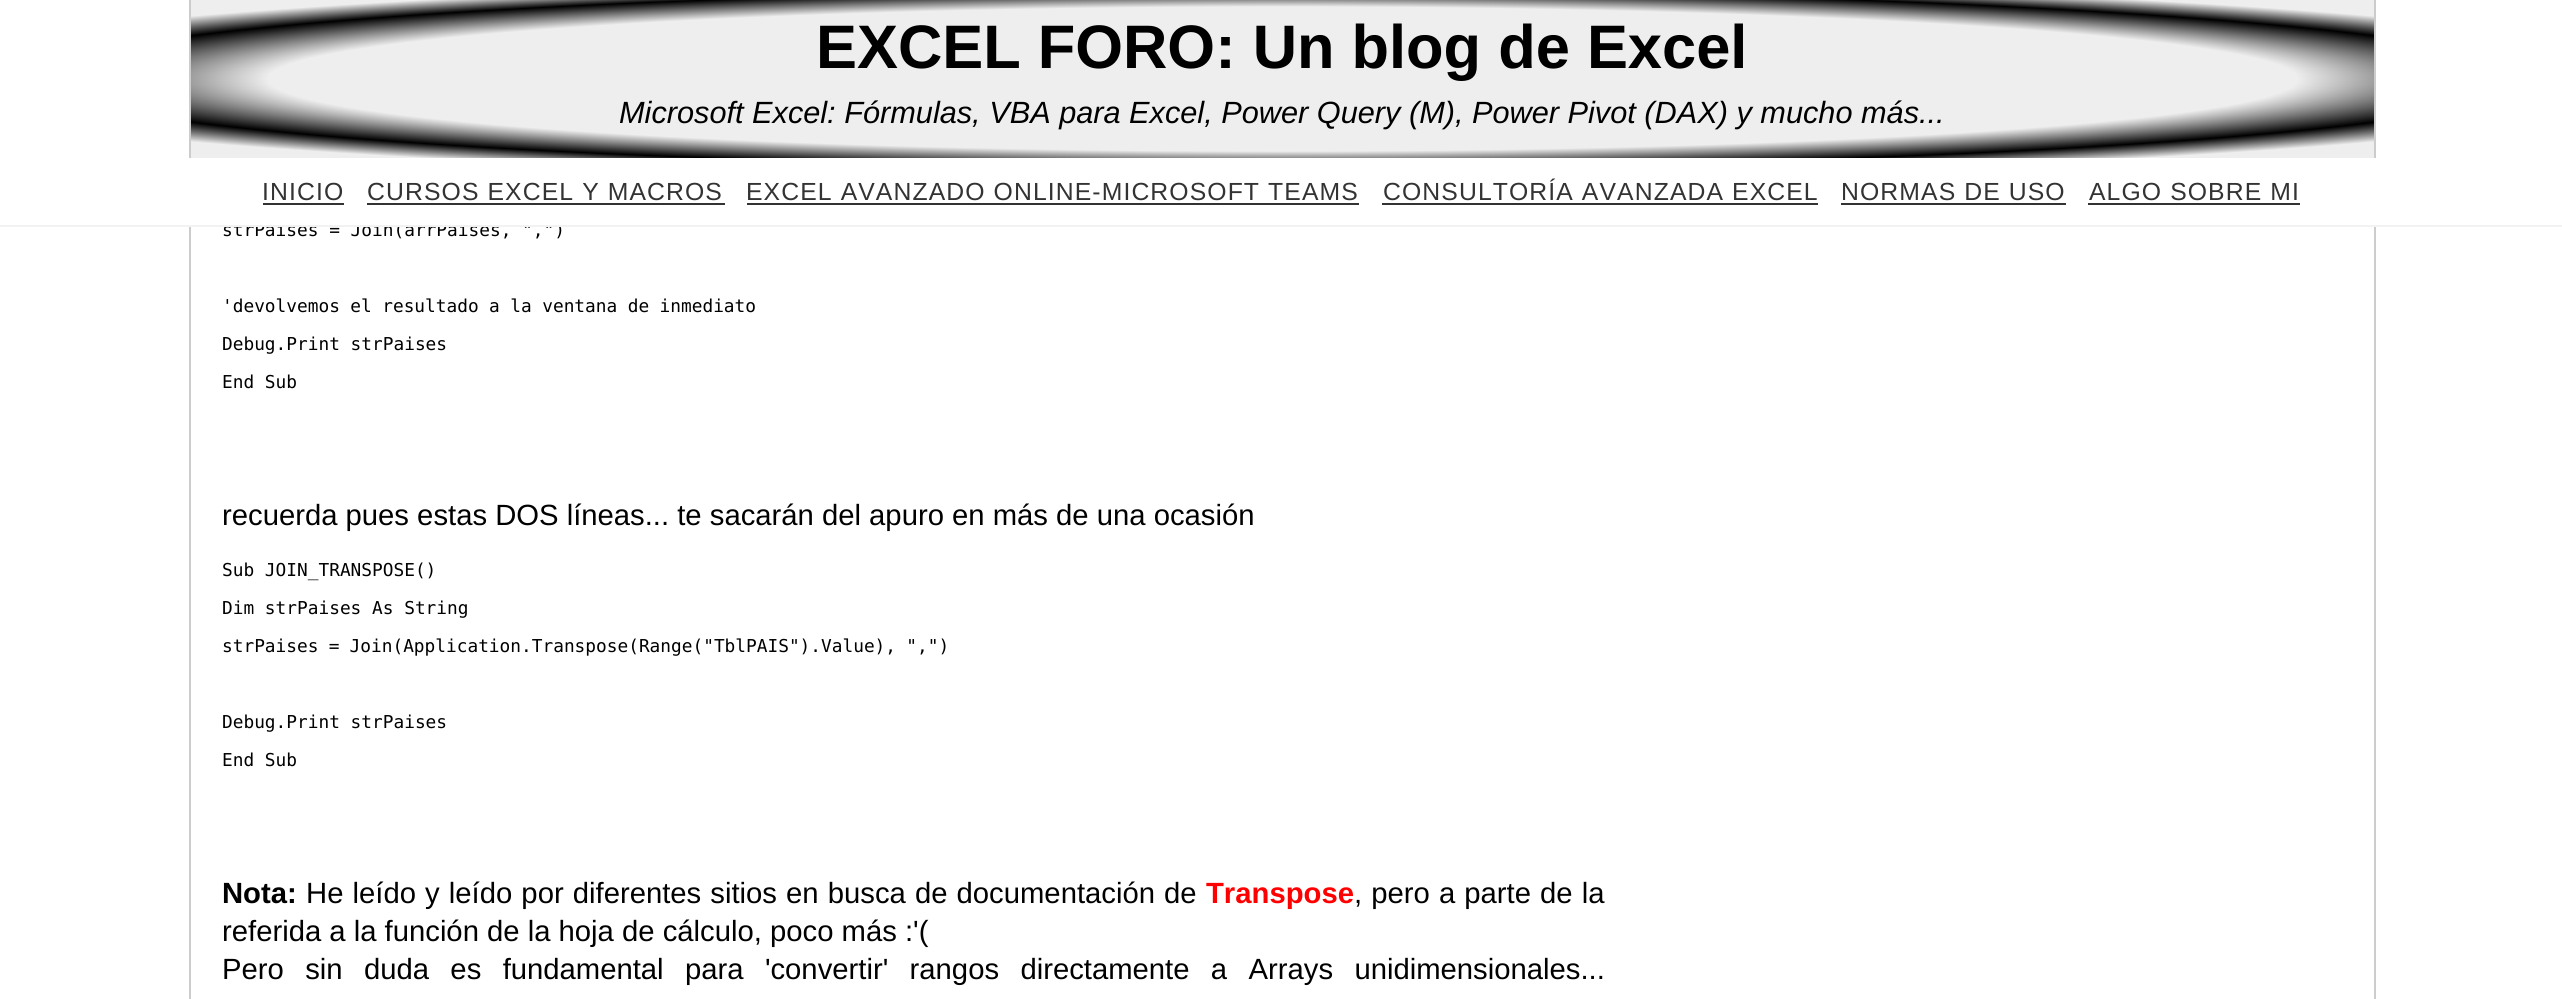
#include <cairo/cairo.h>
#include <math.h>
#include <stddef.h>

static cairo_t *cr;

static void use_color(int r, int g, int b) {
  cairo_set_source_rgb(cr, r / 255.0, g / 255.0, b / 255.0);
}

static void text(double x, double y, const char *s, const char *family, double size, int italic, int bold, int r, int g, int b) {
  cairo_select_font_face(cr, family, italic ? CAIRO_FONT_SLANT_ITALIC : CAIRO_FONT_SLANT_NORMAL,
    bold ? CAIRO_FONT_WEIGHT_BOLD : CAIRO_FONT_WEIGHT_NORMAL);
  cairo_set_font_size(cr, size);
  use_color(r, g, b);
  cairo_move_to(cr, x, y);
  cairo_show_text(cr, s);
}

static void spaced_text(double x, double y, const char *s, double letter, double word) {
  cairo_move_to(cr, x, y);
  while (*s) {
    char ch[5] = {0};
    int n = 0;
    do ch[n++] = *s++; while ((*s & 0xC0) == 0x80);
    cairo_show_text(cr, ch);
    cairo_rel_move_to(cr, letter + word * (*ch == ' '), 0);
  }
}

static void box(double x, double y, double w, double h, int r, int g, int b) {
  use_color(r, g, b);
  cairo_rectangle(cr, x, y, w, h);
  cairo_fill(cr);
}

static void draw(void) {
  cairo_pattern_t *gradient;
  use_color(255, 255, 255);
  cairo_paint(cr);
  gradient = cairo_pattern_create_radial(0, 0, 0, 0, 0, 1);
  cairo_pattern_set_matrix(gradient, &(cairo_matrix_t){1.0 / 1543, 0, 0, 1.0 / 111, -1.0 * 1283 / 1543, -1.0 * 79 / 111});
  cairo_pattern_add_color_stop_rgba(gradient, 0.65, 0.933, 0.933, 0.933, 1);
  cairo_pattern_add_color_stop_rgba(gradient, 0.8, 0, 0, 0, 1);
  cairo_pattern_add_color_stop_rgba(gradient, 0.9, 0.933, 0.933, 0.933, 1);
  cairo_set_source(cr, gradient);
  cairo_pattern_destroy(gradient);
  cairo_rectangle(cr, 191, 0, 2183, 158);
  cairo_fill(cr);
  box(2374, 0, 2, 158, 204, 204, 204);
  box(189, 0, 2, 158, 204, 204, 204);
  box(2374, 227, 2, 772, 204, 204, 204);
  box(189, 227, 2, 772, 204, 204, 204);
  box(263, 203, 81, 2, 51, 51, 51);
  box(367, 203, 358, 2, 51, 51, 51);
  box(747, 203, 612, 2, 51, 51, 51);
  box(1382, 203, 436, 2, 51, 51, 51);
  box(1841, 203, 225, 2, 51, 51, 51);
  box(2088, 203, 212, 2, 51, 51, 51);
  text(816, 68, "EXCEL FORO: Un blog de Excel", "Liberation Sans", 61.4, 0, 1, 0, 0, 0);
  text(619, 123, "Microsoft Excel: Fórmulas, VBA para Excel, Power Query (M), Power Pivot (DAX) y mucho más...", "Liberation Sans", 30.7, 1, 0, 0, 0, 0);
  cairo_select_font_face(cr, "Liberation Sans", CAIRO_FONT_SLANT_NORMAL, CAIRO_FONT_WEIGHT_NORMAL);
  cairo_set_font_size(cr, 24.75);
  use_color(51, 51, 51);
  spaced_text(262, 200, "INICIO", 1.1, 0);
  spaced_text(367, 200, "CURSOS EXCEL Y MACROS", 1.1, 0);
  spaced_text(746, 200, "EXCEL AVANZADO ONLINE-MICROSOFT TEAMS", 1.1, 0);
  spaced_text(1383, 200, "CONSULTORÍA AVANZADA EXCEL", 1.1, 0);
  spaced_text(1841, 200, "NORMAS DE USO", 1.1, 0);
  spaced_text(2089, 200, "ALGO SOBRE MI", 1.1, 0);
  text(222, 236, "strPaises = Join(arrPaises, \",\")", "DejaVu Sans Mono", 17.8, 0, 0, 0, 0, 0);
  box(0, 225, 2562, 2, 242, 242, 242);
  box(236, 222, 324, 3, 255, 255, 255);
  use_color(0, 0, 0);
  spaced_text(222, 312, "'devolvemos el resultado a la ventana de inmediato", 0, -0.25);
  cairo_save(cr);
  cairo_rectangle(cr, 223, 0, 1384, 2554);
  cairo_clip(cr);
  text(222, 350, "Debug.Print strPaises", "DejaVu Sans Mono", 17.8, 0, 0, 0, 0, 0);
  cairo_restore(cr);
  text(222, 388, "End Sub", "DejaVu Sans Mono", 17.8, 0, 0, 0, 0, 0);
  text(222, 525, "recuerda pues estas DOS líneas... te sacarán del apuro en más de una ocasión", "Liberation Sans", 29.25, 0, 0, 0, 0, 0);
  text(222, 576, "Sub JOIN_TRANSPOSE()", "DejaVu Sans Mono", 17.8, 0, 0, 0, 0, 0);
  cairo_save(cr);
  cairo_rectangle(cr, 223, 0, 1384, 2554);
  cairo_clip(cr);
  text(222, 614, "Dim strPaises As String", "DejaVu Sans Mono", 17.8, 0, 0, 0, 0, 0);
  cairo_restore(cr);
  spaced_text(222, 652, "strPaises = Join(Application.Transpose(Range(\"TblPAIS\").Value), \",\")", 0, -0.5);
  cairo_save(cr);
  cairo_rectangle(cr, 223, 0, 1384, 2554);
  cairo_clip(cr);
  text(222, 728, "Debug.Print strPaises", "DejaVu Sans Mono", 17.8, 0, 0, 0, 0, 0);
  cairo_restore(cr);
  text(222, 766, "End Sub", "DejaVu Sans Mono", 17.8, 0, 0, 0, 0, 0);
  text(222, 903, "Nota:", "Liberation Sans", 29.25, 0, 1, 0, 0, 0);
  cairo_select_font_face(cr, "Liberation Sans", CAIRO_FONT_SLANT_NORMAL, CAIRO_FONT_WEIGHT_NORMAL);
  spaced_text(306, 903, "He leído y leído por diferentes sitios en busca de documentación de", 0, 1);
  text(1206, 903, "Transpose", "Liberation Sans", 29.25, 0, 1, 255, 0, 0);
  cairo_select_font_face(cr, "Liberation Sans", CAIRO_FONT_SLANT_NORMAL, CAIRO_FONT_WEIGHT_NORMAL);
  use_color(0, 0, 0);
  spaced_text(1354, 903, ", pero a parte de la", 0, 1);
  text(222, 941, "referida a la función de la hoja de cálculo, poco más :'(", "Liberation Sans", 29.25, 0, 0, 0, 0, 0);
  spaced_text(222, 979, "Pero sin duda es fundamental para 'convertir' rangos directamente a Arrays unidimensionales...", 0, 13.25);
}

int main(void) {
  cairo_surface_t *surface = cairo_image_surface_create(CAIRO_FORMAT_RGB24, 2562, 999);
  cr = cairo_create(surface);
  cairo_font_options_t *options = cairo_font_options_create();
  cairo_font_options_set_hint_metrics(options, CAIRO_HINT_METRICS_OFF);
  cairo_font_options_set_hint_style(options, CAIRO_HINT_STYLE_NONE);
  cairo_set_font_options(cr, options);
  cairo_set_miter_limit(cr, 4);
  draw();
  cairo_surface_write_to_png(surface, "out.png");
  cairo_font_options_destroy(options);
  cairo_destroy(cr);
  cairo_surface_destroy(surface);
  return 0;
}
